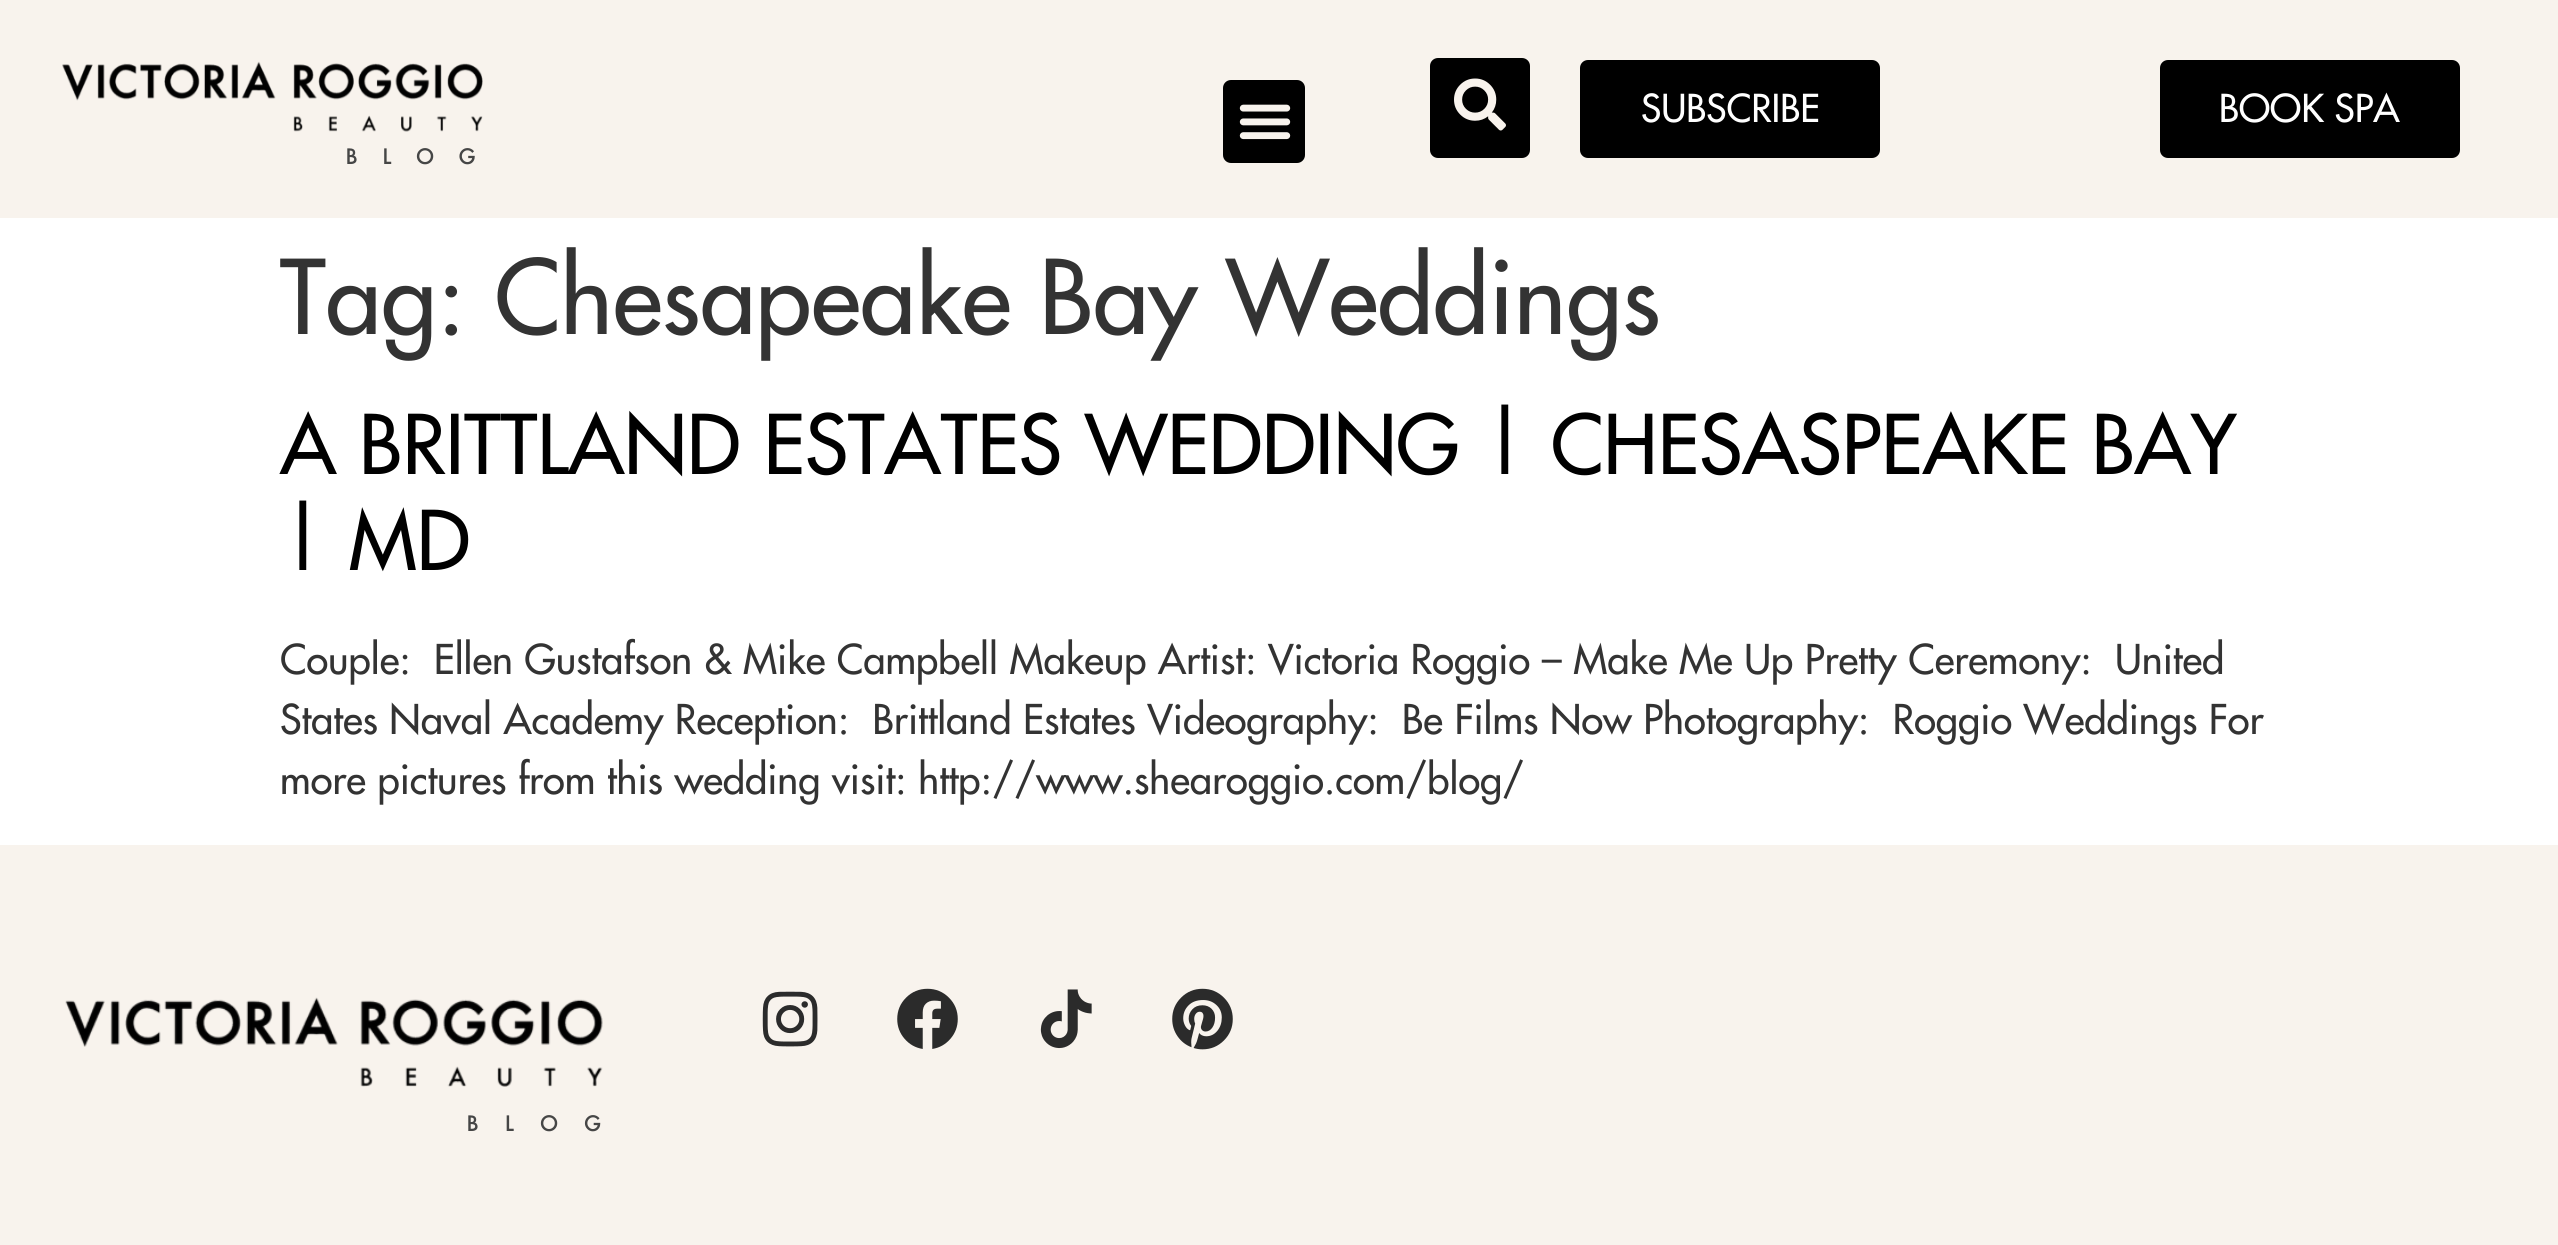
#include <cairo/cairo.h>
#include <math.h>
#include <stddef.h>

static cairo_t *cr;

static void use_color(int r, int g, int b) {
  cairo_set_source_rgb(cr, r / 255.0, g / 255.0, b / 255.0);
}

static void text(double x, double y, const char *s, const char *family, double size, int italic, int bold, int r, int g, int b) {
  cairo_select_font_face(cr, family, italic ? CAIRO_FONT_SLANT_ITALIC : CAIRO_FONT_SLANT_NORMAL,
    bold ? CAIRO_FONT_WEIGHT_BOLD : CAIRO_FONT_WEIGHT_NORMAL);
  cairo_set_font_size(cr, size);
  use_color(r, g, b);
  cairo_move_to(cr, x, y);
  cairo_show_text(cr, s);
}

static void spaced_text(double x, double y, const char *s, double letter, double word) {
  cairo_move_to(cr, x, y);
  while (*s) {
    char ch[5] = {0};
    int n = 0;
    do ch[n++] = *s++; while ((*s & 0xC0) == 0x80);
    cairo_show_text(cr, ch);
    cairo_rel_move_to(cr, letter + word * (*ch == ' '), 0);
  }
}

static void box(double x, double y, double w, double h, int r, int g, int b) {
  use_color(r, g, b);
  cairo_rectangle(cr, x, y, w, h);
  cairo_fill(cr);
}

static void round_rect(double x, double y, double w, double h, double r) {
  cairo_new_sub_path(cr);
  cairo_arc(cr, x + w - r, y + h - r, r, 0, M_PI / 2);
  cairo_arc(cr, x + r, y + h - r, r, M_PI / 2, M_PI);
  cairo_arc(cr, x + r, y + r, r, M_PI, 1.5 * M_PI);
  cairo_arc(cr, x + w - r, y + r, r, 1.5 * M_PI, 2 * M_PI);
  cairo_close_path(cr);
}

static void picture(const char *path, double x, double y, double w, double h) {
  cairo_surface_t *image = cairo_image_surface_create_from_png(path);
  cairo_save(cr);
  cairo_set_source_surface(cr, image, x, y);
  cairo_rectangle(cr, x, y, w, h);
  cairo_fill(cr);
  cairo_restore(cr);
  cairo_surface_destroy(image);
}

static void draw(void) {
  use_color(255, 255, 255);
  cairo_paint(cr);
  box(0, 0, 2558, 218, 248, 243, 237);
  use_color(0, 0, 0);
  round_rect(1223, 80, 82, 83, 8);
  cairo_fill(cr);
  picture("img_01.png", 1239, 104, 52, 36);
  round_rect(1430, 58, 100, 100, 8);
  cairo_fill(cr);
  picture("img_02.png", 1454, 78, 52, 53);
  round_rect(1580, 60, 300, 98, 8);
  cairo_fill(cr);
  round_rect(2160, 60, 300, 98, 8);
  cairo_fill(cr);
  picture("img_03.png", 62, 61, 421, 71);
  box(0, 845, 2558, 400, 248, 243, 237);
  picture("img_04.png", 762, 991, 56, 56);
  picture("img_05.png", 897, 988, 61, 61);
  picture("img_06.png", 1040, 989, 52, 60);
  picture("img_07.png", 1172, 988, 61, 62);
  picture("img_08.png", 65, 997, 538, 90);
  text(1641, 122, "SUBSCRIBE", "Futura", 37.5, 0, 0, 255, 255, 255);
  text(2219, 122, "BOOK SPA", "Futura", 37.5, 0, 0, 255, 255, 255);
  cairo_select_font_face(cr, "Futura", CAIRO_FONT_SLANT_NORMAL, CAIRO_FONT_WEIGHT_BOLD);
  cairo_set_font_size(cr, 20);
  use_color(70, 70, 70);
  spaced_text(346, 164, "BLOG", 26, 0);
  text(280, 334, "Tag: Chesapeake Bay Weddings", "Futura", 100, 0, 0, 51, 51, 51);
  text(280, 474, "A BRITTLAND ESTATES WEDDING | CHESASPEAKE BAY", "Futura", 80, 0, 0, 0, 0, 0);
  text(280, 570, "| MD", "Futura", 80, 0, 0, 0, 0, 0);
  text(280, 674, "Couple:  Ellen Gustafson & Mike Campbell Makeup Artist: Victoria Roggio – Make Me Up Pretty Ceremony:  United", "Futura", 40, 0, 0, 51, 51, 51);
  text(280, 734, "States Naval Academy Reception:  Brittland Estates Videography:  Be Films Now Photography:  Roggio Weddings For", "Futura", 40, 0, 0, 51, 51, 51);
  text(280, 794, "more pictures from this wedding visit: http://www.shearoggio.com/blog/", "Futura", 40, 0, 0, 51, 51, 51);
  cairo_select_font_face(cr, "Futura", CAIRO_FONT_SLANT_NORMAL, CAIRO_FONT_WEIGHT_BOLD);
  cairo_set_font_size(cr, 20);
  use_color(70, 70, 70);
  spaced_text(467, 1131, "BLOG", 27.5, 0);
}

int main(void) {
  cairo_surface_t *surface = cairo_image_surface_create(CAIRO_FORMAT_RGB24, 2558, 1245);
  cr = cairo_create(surface);
  cairo_font_options_t *options = cairo_font_options_create();
  cairo_font_options_set_hint_metrics(options, CAIRO_HINT_METRICS_OFF);
  cairo_font_options_set_hint_style(options, CAIRO_HINT_STYLE_NONE);
  cairo_set_font_options(cr, options);
  cairo_set_miter_limit(cr, 4);
  draw();
  cairo_surface_write_to_png(surface, "out.png");
  cairo_font_options_destroy(options);
  cairo_destroy(cr);
  cairo_surface_destroy(surface);
  return 0;
}
